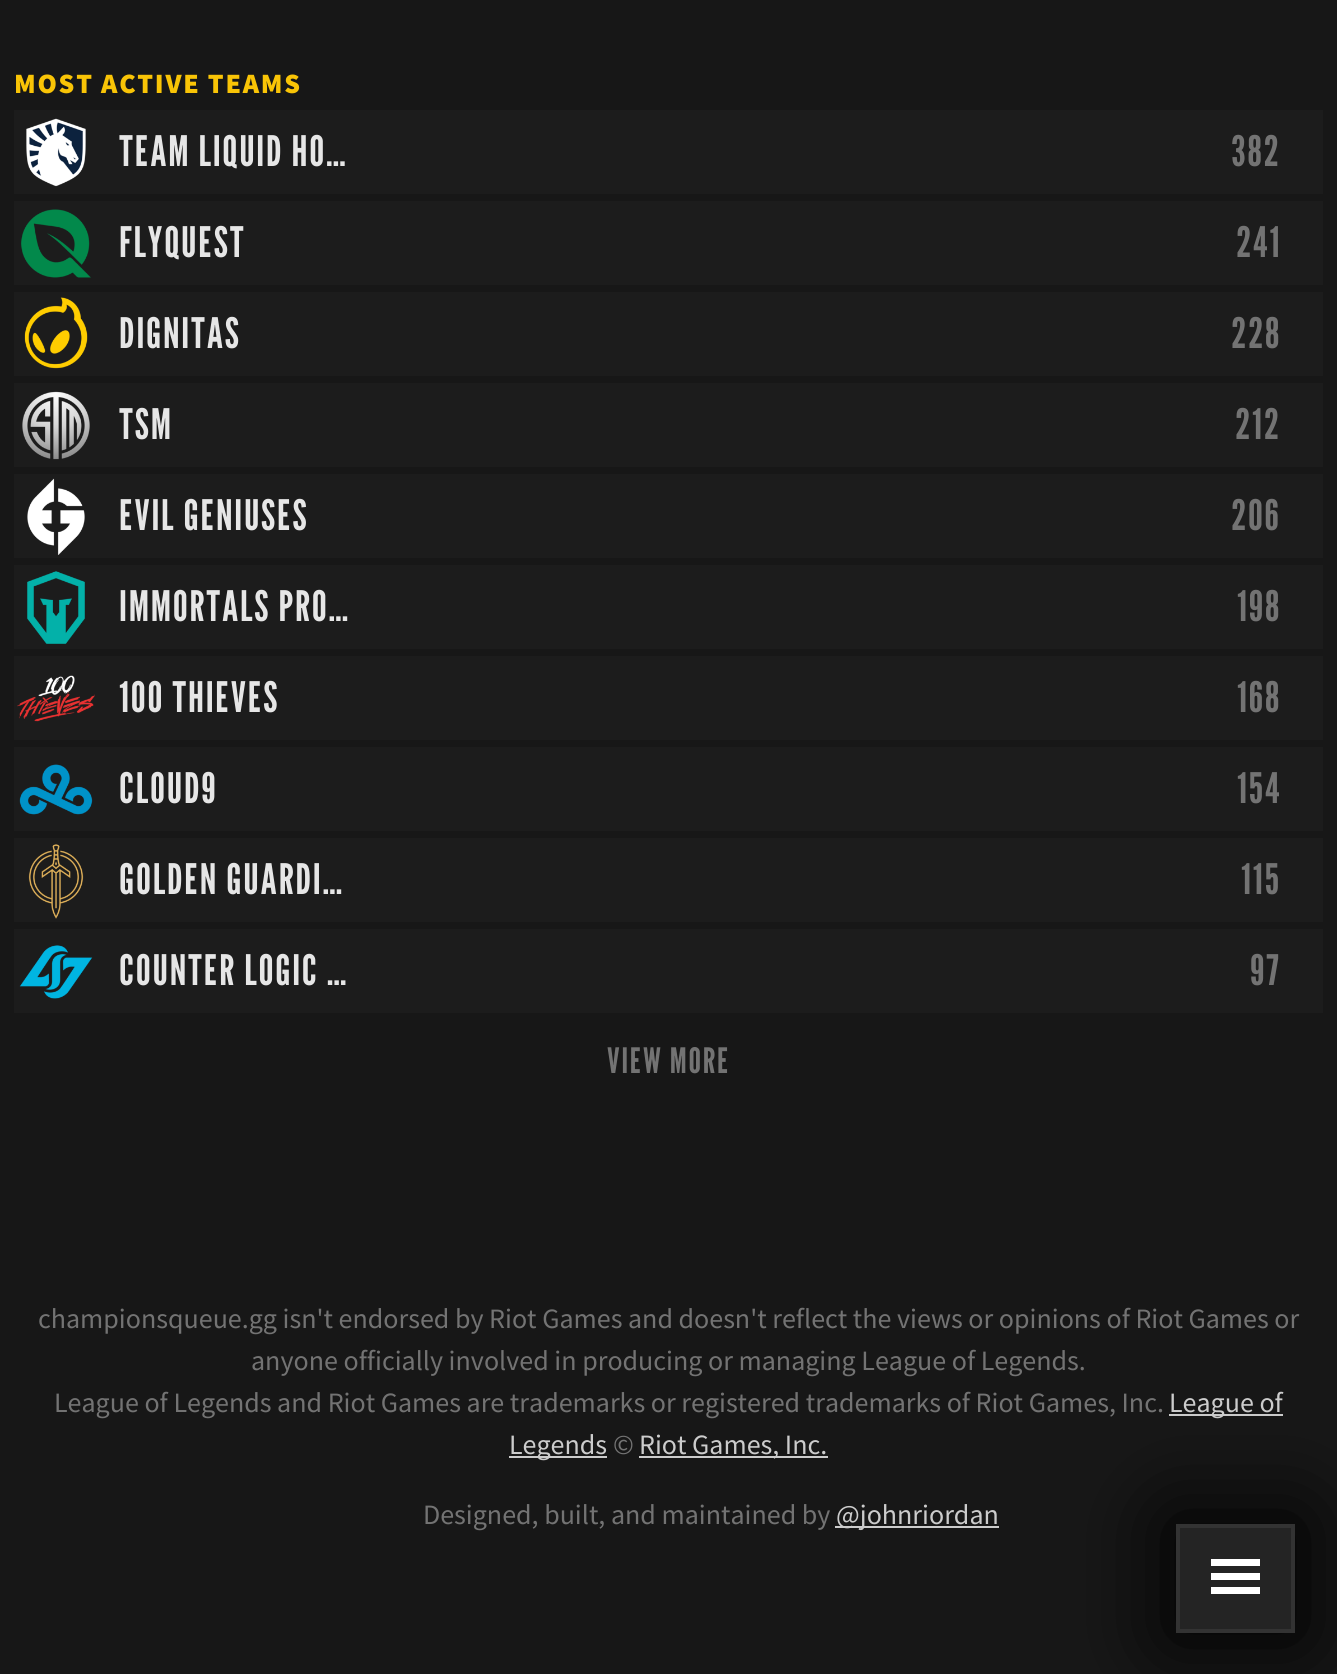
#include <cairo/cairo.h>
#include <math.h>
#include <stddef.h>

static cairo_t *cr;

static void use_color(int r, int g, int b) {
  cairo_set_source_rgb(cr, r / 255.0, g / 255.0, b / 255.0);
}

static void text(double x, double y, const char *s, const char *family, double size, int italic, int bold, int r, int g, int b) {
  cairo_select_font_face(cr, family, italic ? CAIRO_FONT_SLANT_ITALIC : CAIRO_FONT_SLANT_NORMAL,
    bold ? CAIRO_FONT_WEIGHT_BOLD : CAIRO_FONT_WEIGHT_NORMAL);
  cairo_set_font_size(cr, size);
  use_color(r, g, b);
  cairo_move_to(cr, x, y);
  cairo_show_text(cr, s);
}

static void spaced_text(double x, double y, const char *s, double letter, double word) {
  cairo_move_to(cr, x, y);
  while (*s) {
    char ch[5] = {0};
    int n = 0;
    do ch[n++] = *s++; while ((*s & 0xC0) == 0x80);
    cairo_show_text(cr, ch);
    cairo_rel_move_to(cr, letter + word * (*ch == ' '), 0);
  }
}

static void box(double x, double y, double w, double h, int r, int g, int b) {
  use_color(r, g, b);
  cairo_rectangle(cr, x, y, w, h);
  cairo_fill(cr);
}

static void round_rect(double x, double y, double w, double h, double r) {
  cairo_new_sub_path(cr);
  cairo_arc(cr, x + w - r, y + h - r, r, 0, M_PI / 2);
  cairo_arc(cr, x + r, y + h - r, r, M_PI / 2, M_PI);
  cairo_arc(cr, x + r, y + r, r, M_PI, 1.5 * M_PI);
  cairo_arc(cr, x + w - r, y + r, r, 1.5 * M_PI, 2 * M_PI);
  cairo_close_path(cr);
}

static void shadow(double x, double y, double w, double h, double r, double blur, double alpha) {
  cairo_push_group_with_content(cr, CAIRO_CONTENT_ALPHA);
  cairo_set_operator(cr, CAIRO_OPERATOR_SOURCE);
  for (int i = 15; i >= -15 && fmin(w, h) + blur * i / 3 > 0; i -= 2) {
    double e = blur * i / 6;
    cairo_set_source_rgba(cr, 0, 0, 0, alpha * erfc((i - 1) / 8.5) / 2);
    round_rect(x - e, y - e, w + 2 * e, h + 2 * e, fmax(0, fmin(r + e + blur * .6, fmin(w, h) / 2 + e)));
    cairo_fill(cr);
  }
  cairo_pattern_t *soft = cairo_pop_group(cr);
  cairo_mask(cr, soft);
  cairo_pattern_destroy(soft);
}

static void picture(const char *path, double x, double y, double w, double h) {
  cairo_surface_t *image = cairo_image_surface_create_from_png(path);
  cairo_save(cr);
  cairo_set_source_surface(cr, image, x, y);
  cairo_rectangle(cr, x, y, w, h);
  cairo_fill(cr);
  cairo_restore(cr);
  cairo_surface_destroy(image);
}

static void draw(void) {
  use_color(23, 23, 23);
  cairo_paint(cr);
  box(14, 110, 1309, 84, 28, 28, 28);
  picture("img_01.png", 26, 118, 60, 69);
  box(14, 201, 1309, 84, 28, 28, 28);
  picture("img_02.png", 21, 209, 70, 69);
  box(14, 292, 1309, 84, 28, 28, 28);
  picture("img_03.png", 24, 297, 64, 72);
  box(14, 383, 1309, 84, 28, 28, 28);
  picture("img_04.png", 22, 391, 68, 69);
  box(14, 474, 1309, 84, 28, 28, 28);
  picture("img_05.png", 27, 478, 58, 77);
  box(14, 565, 1309, 84, 28, 28, 28);
  picture("img_06.png", 27, 571, 58, 73);
  box(14, 656, 1309, 84, 28, 28, 28);
  picture("img_07.png", 17, 675, 78, 47);
  box(14, 747, 1309, 84, 28, 28, 28);
  picture("img_08.png", 19, 764, 74, 51);
  box(14, 838, 1309, 84, 28, 28, 28);
  picture("img_09.png", 28, 844, 56, 75);
  box(14, 929, 1309, 84, 28, 28, 28);
  picture("img_10.png", 19, 945, 74, 54);
  box(1169, 1414, 114, 2, 204, 204, 204);
  box(509, 1456, 98, 2, 204, 204, 204);
  box(639, 1456, 189, 2, 204, 204, 204);
  box(835, 1526, 164, 2, 204, 204, 204);
  use_color(0, 0, 0);
  shadow(1167, 1516, 137, 126, 0, 44, 1);
  use_color(36, 36, 36);
  cairo_rectangle(cr, 1178, 1526, 115, 105);
  cairo_fill_preserve(cr);
  use_color(51, 51, 51);
  cairo_set_line_width(cr, 4);
  cairo_stroke(cr);
  box(1211, 1559, 49, 7, 255, 255, 255);
  box(1211, 1573, 49, 7, 255, 255, 255);
  box(1211, 1587, 49, 7, 255, 255, 255);
  cairo_select_font_face(cr, "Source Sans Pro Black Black", CAIRO_FONT_SLANT_NORMAL, CAIRO_FONT_WEIGHT_NORMAL);
  cairo_set_font_size(cr, 28);
  use_color(249, 196, 6);
  spaced_text(14, 93, "MOST ACTIVE TEAMS", 1.75, 0);
  cairo_select_font_face(cr, "League Gothic", CAIRO_FONT_SLANT_NORMAL, CAIRO_FONT_WEIGHT_NORMAL);
  cairo_set_font_size(cr, 42);
  use_color(230, 230, 230);
  spaced_text(119, 166, "TEAM LIQUID HO…", 1.75, 0);
  use_color(115, 115, 115);
  spaced_text(1231, 166, "382", 1.75, 0);
  use_color(230, 230, 230);
  spaced_text(119, 257, "FLYQUEST", 1.75, 0);
  use_color(115, 115, 115);
  spaced_text(1236, 257, "241", 1.75, 0);
  use_color(230, 230, 230);
  spaced_text(119, 348, "DIGNITAS", 1.75, 0);
  use_color(115, 115, 115);
  spaced_text(1231, 348, "228", 1.75, 0);
  use_color(230, 230, 230);
  spaced_text(119, 439, "TSM", 1.75, 0);
  use_color(115, 115, 115);
  spaced_text(1235, 439, "212", 1.75, 0);
  use_color(230, 230, 230);
  spaced_text(119, 530, "EVIL GENIUSES", 1.75, 0);
  use_color(115, 115, 115);
  spaced_text(1231, 530, "206", 1.75, 0);
  use_color(230, 230, 230);
  spaced_text(119, 621, "IMMORTALS PRO…", 1.75, 0);
  use_color(115, 115, 115);
  spaced_text(1237, 621, "198", 1.75, 0);
  use_color(230, 230, 230);
  spaced_text(119, 712, "100 THIEVES", 1.75, 0);
  use_color(115, 115, 115);
  spaced_text(1237, 712, "168", 1.75, 0);
  use_color(230, 230, 230);
  spaced_text(119, 803, "CLOUD9", 1.75, 0);
  use_color(115, 115, 115);
  spaced_text(1237, 803, "154", 1.75, 0);
  use_color(230, 230, 230);
  spaced_text(119, 894, "GOLDEN GUARDI…", 1.75, 0);
  use_color(115, 115, 115);
  spaced_text(1241, 894, "115", 1.75, 0);
  use_color(230, 230, 230);
  spaced_text(119, 985, "COUNTER LOGIC …", 1.75, 0);
  use_color(115, 115, 115);
  spaced_text(1250, 985, "97", 1.75, 0);
  cairo_set_font_size(cr, 35);
  spaced_text(607, 1073, "VIEW MORE", 1.75, 0);
  text(38, 1328, "championsqueue.gg isn't endorsed by Riot Games and doesn't reflect the views or opinions of Riot Games or", "Source Sans Pro", 28, 0, 0, 115, 115, 115);
  text(251, 1370, "anyone officially involved in producing or managing League of Legends.", "Source Sans Pro", 28, 0, 0, 115, 115, 115);
  text(54, 1412, "League of Legends and Riot Games are trademarks or registered trademarks of Riot Games, Inc.", "Source Sans Pro", 28, 0, 0, 115, 115, 115);
  text(1169, 1412, "League of", "Source Sans Pro", 28, 0, 0, 204, 204, 204);
  text(509, 1454, "Legends", "Source Sans Pro", 28, 0, 0, 204, 204, 204);
  text(613, 1454, "©", "Source Sans Pro", 28, 0, 0, 115, 115, 115);
  text(639, 1454, "Riot Games, Inc.", "Source Sans Pro", 28, 0, 0, 204, 204, 204);
  text(423, 1524, "Designed, built, and maintained by", "Source Sans Pro", 28, 0, 0, 115, 115, 115);
  text(836, 1524, "@johnriordan", "Source Sans Pro", 28, 0, 0, 204, 204, 204);
}

int main(void) {
  cairo_surface_t *surface = cairo_image_surface_create(CAIRO_FORMAT_RGB24, 1337, 1674);
  cr = cairo_create(surface);
  cairo_font_options_t *options = cairo_font_options_create();
  cairo_font_options_set_hint_metrics(options, CAIRO_HINT_METRICS_OFF);
  cairo_font_options_set_hint_style(options, CAIRO_HINT_STYLE_NONE);
  cairo_set_font_options(cr, options);
  cairo_set_miter_limit(cr, 4);
  draw();
  cairo_surface_write_to_png(surface, "out.png");
  cairo_font_options_destroy(options);
  cairo_destroy(cr);
  cairo_surface_destroy(surface);
  return 0;
}
